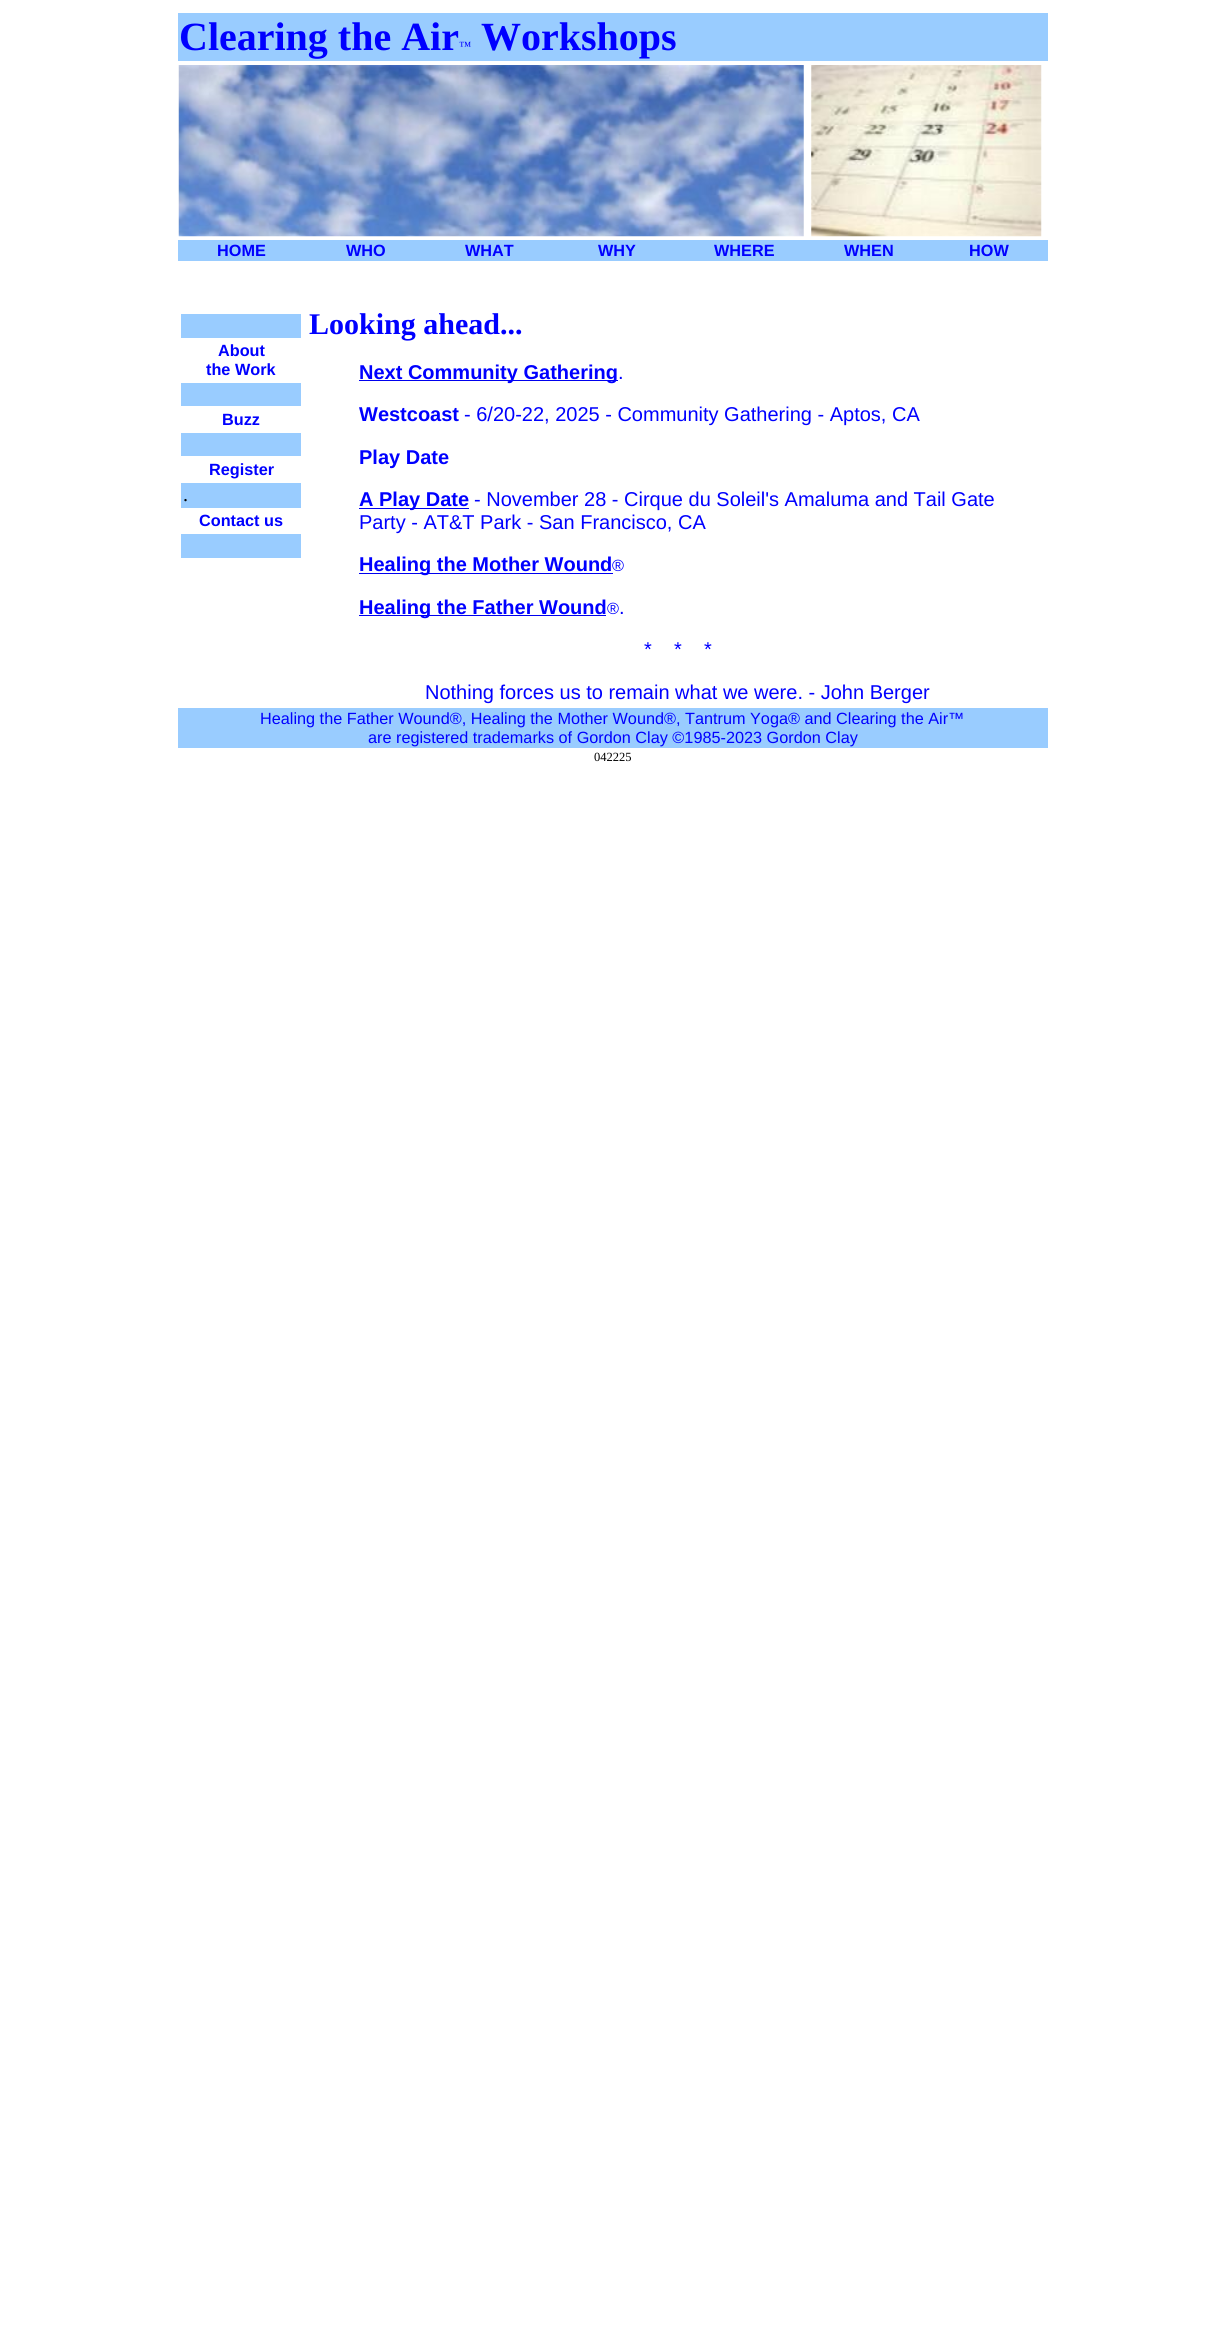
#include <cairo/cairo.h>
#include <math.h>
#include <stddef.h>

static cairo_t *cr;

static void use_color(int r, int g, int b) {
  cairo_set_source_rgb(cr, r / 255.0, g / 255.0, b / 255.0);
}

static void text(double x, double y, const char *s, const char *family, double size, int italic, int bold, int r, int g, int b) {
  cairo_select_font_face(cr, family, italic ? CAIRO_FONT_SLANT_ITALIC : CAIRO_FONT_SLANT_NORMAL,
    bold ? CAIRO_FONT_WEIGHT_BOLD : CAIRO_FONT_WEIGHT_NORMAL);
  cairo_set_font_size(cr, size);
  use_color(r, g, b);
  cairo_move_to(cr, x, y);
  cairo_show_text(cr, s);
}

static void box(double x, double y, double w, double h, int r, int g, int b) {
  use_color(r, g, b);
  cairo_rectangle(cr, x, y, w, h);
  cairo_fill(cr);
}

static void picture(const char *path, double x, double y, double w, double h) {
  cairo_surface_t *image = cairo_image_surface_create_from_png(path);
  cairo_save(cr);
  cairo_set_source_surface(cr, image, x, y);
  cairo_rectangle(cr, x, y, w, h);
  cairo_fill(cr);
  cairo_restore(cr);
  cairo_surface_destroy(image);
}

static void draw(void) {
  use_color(255, 255, 255);
  cairo_paint(cr);
  box(178, 13, 870, 48, 153, 204, 255);
  picture("img_01.png", 178, 65, 626, 172);
  picture("img_02.png", 811, 65, 231, 172);
  box(178, 240, 870, 21, 153, 204, 255);
  box(181, 314, 120, 24, 153, 204, 255);
  box(181, 383, 120, 23, 153, 204, 255);
  box(181, 433, 120, 23, 153, 204, 255);
  box(181, 483, 120, 25, 153, 204, 255);
  box(181, 534, 120, 24, 153, 204, 255);
  box(359, 380, 259, 1, 0, 0, 238);
  box(359, 508, 110, 1, 0, 0, 238);
  box(359, 573, 254, 1, 0, 0, 238);
  box(359, 615, 247, 1, 0, 0, 238);
  box(178, 708, 870, 40, 153, 204, 255);
  text(179, 50, "Clearing the Air", "Liberation Serif", 40, 0, 1, 0, 0, 255);
  text(459, 50, "™", "Liberation Serif", 12.5, 0, 0, 0, 0, 255);
  text(481, 50, "Workshops", "Liberation Serif", 40, 0, 1, 0, 0, 255);
  text(217, 256, "HOME", "Liberation Sans", 16.25, 0, 1, 0, 0, 255);
  text(346, 256, "WHO", "Liberation Sans", 16.25, 0, 1, 0, 0, 255);
  text(465, 256, "WHAT", "Liberation Sans", 16.25, 0, 1, 0, 0, 255);
  text(598, 256, "WHY", "Liberation Sans", 16.25, 0, 1, 0, 0, 255);
  text(714, 256, "WHERE", "Liberation Sans", 16.25, 0, 1, 0, 0, 255);
  text(844, 256, "WHEN", "Liberation Sans", 16.25, 0, 1, 0, 0, 255);
  text(969, 256, "HOW", "Liberation Sans", 16.25, 0, 1, 0, 0, 255);
  text(218, 356, "About", "Liberation Sans", 16.25, 0, 1, 0, 0, 255);
  text(206, 375, "the Work", "Liberation Sans", 16.25, 0, 1, 0, 0, 255);
  text(222, 425, "Buzz", "Liberation Sans", 16.25, 0, 1, 0, 0, 255);
  text(209, 475, "Register", "Liberation Sans", 16.25, 0, 1, 0, 0, 255);
  text(183, 501, ".", "Liberation Serif", 20, 0, 0, 0, 0, 0);
  text(199, 526, "Contact us", "Liberation Sans", 16.25, 0, 1, 0, 0, 255);
  text(309, 334, "Looking ahead...", "Liberation Serif", 30, 0, 1, 0, 0, 255);
  text(359, 379, "Next Community Gathering", "Liberation Sans", 20, 0, 1, 0, 0, 255);
  text(618, 379, ".", "Liberation Sans", 20, 0, 0, 0, 0, 255);
  text(359, 421, "Westcoast", "Liberation Sans", 20, 0, 1, 0, 0, 255);
  text(464, 421, "- 6/20-22, 2025 - Community Gathering - Aptos, CA", "Liberation Sans", 20, 0, 0, 0, 0, 255);
  text(359, 464, "Play Date", "Liberation Sans", 20, 0, 1, 0, 0, 255);
  text(359, 506, "A Play Date", "Liberation Sans", 20, 0, 1, 0, 0, 255);
  text(474, 506, "- November 28 - Cirque du Soleil's Amaluma and Tail Gate", "Liberation Sans", 20, 0, 0, 0, 0, 255);
  text(359, 529, "Party - AT&T Park - San Francisco, CA", "Liberation Sans", 20, 0, 0, 0, 0, 255);
  text(359, 571, "Healing the Mother Wound", "Liberation Sans", 20, 0, 1, 0, 0, 255);
  text(612, 571, "®", "Liberation Sans", 16.25, 0, 0, 0, 0, 255);
  text(359, 614, "Healing the Father Wound", "Liberation Sans", 20, 0, 1, 0, 0, 255);
  text(607, 614, "®", "Liberation Sans", 16.25, 0, 0, 0, 0, 255);
  text(619, 614, ".", "Liberation Sans", 20, 0, 0, 0, 0, 255);
  text(644, 656, "*    *    *", "Liberation Sans", 20, 0, 0, 0, 0, 255);
  text(425, 699, "Nothing forces us to remain what we were. - John Berger", "Liberation Sans", 20, 0, 0, 0, 0, 255);
  text(260, 724, "Healing the Father Wound®, Healing the Mother Wound®, Tantrum Yoga® and Clearing the Air™", "Liberation Sans", 16.25, 0, 0, 0, 0, 255);
  text(368, 743, "are registered trademarks of Gordon Clay ©1985-2023 Gordon Clay", "Liberation Sans", 16.25, 0, 0, 0, 0, 255);
  text(594, 761, "042225", "Liberation Serif", 12.5, 0, 0, 0, 0, 0);
}

int main(void) {
  cairo_surface_t *surface = cairo_image_surface_create(CAIRO_FORMAT_RGB24, 1224, 2332);
  cr = cairo_create(surface);
  cairo_font_options_t *options = cairo_font_options_create();
  cairo_font_options_set_hint_metrics(options, CAIRO_HINT_METRICS_OFF);
  cairo_font_options_set_hint_style(options, CAIRO_HINT_STYLE_NONE);
  cairo_set_font_options(cr, options);
  cairo_set_miter_limit(cr, 4);
  draw();
  cairo_surface_write_to_png(surface, "out.png");
  cairo_font_options_destroy(options);
  cairo_destroy(cr);
  cairo_surface_destroy(surface);
  return 0;
}
